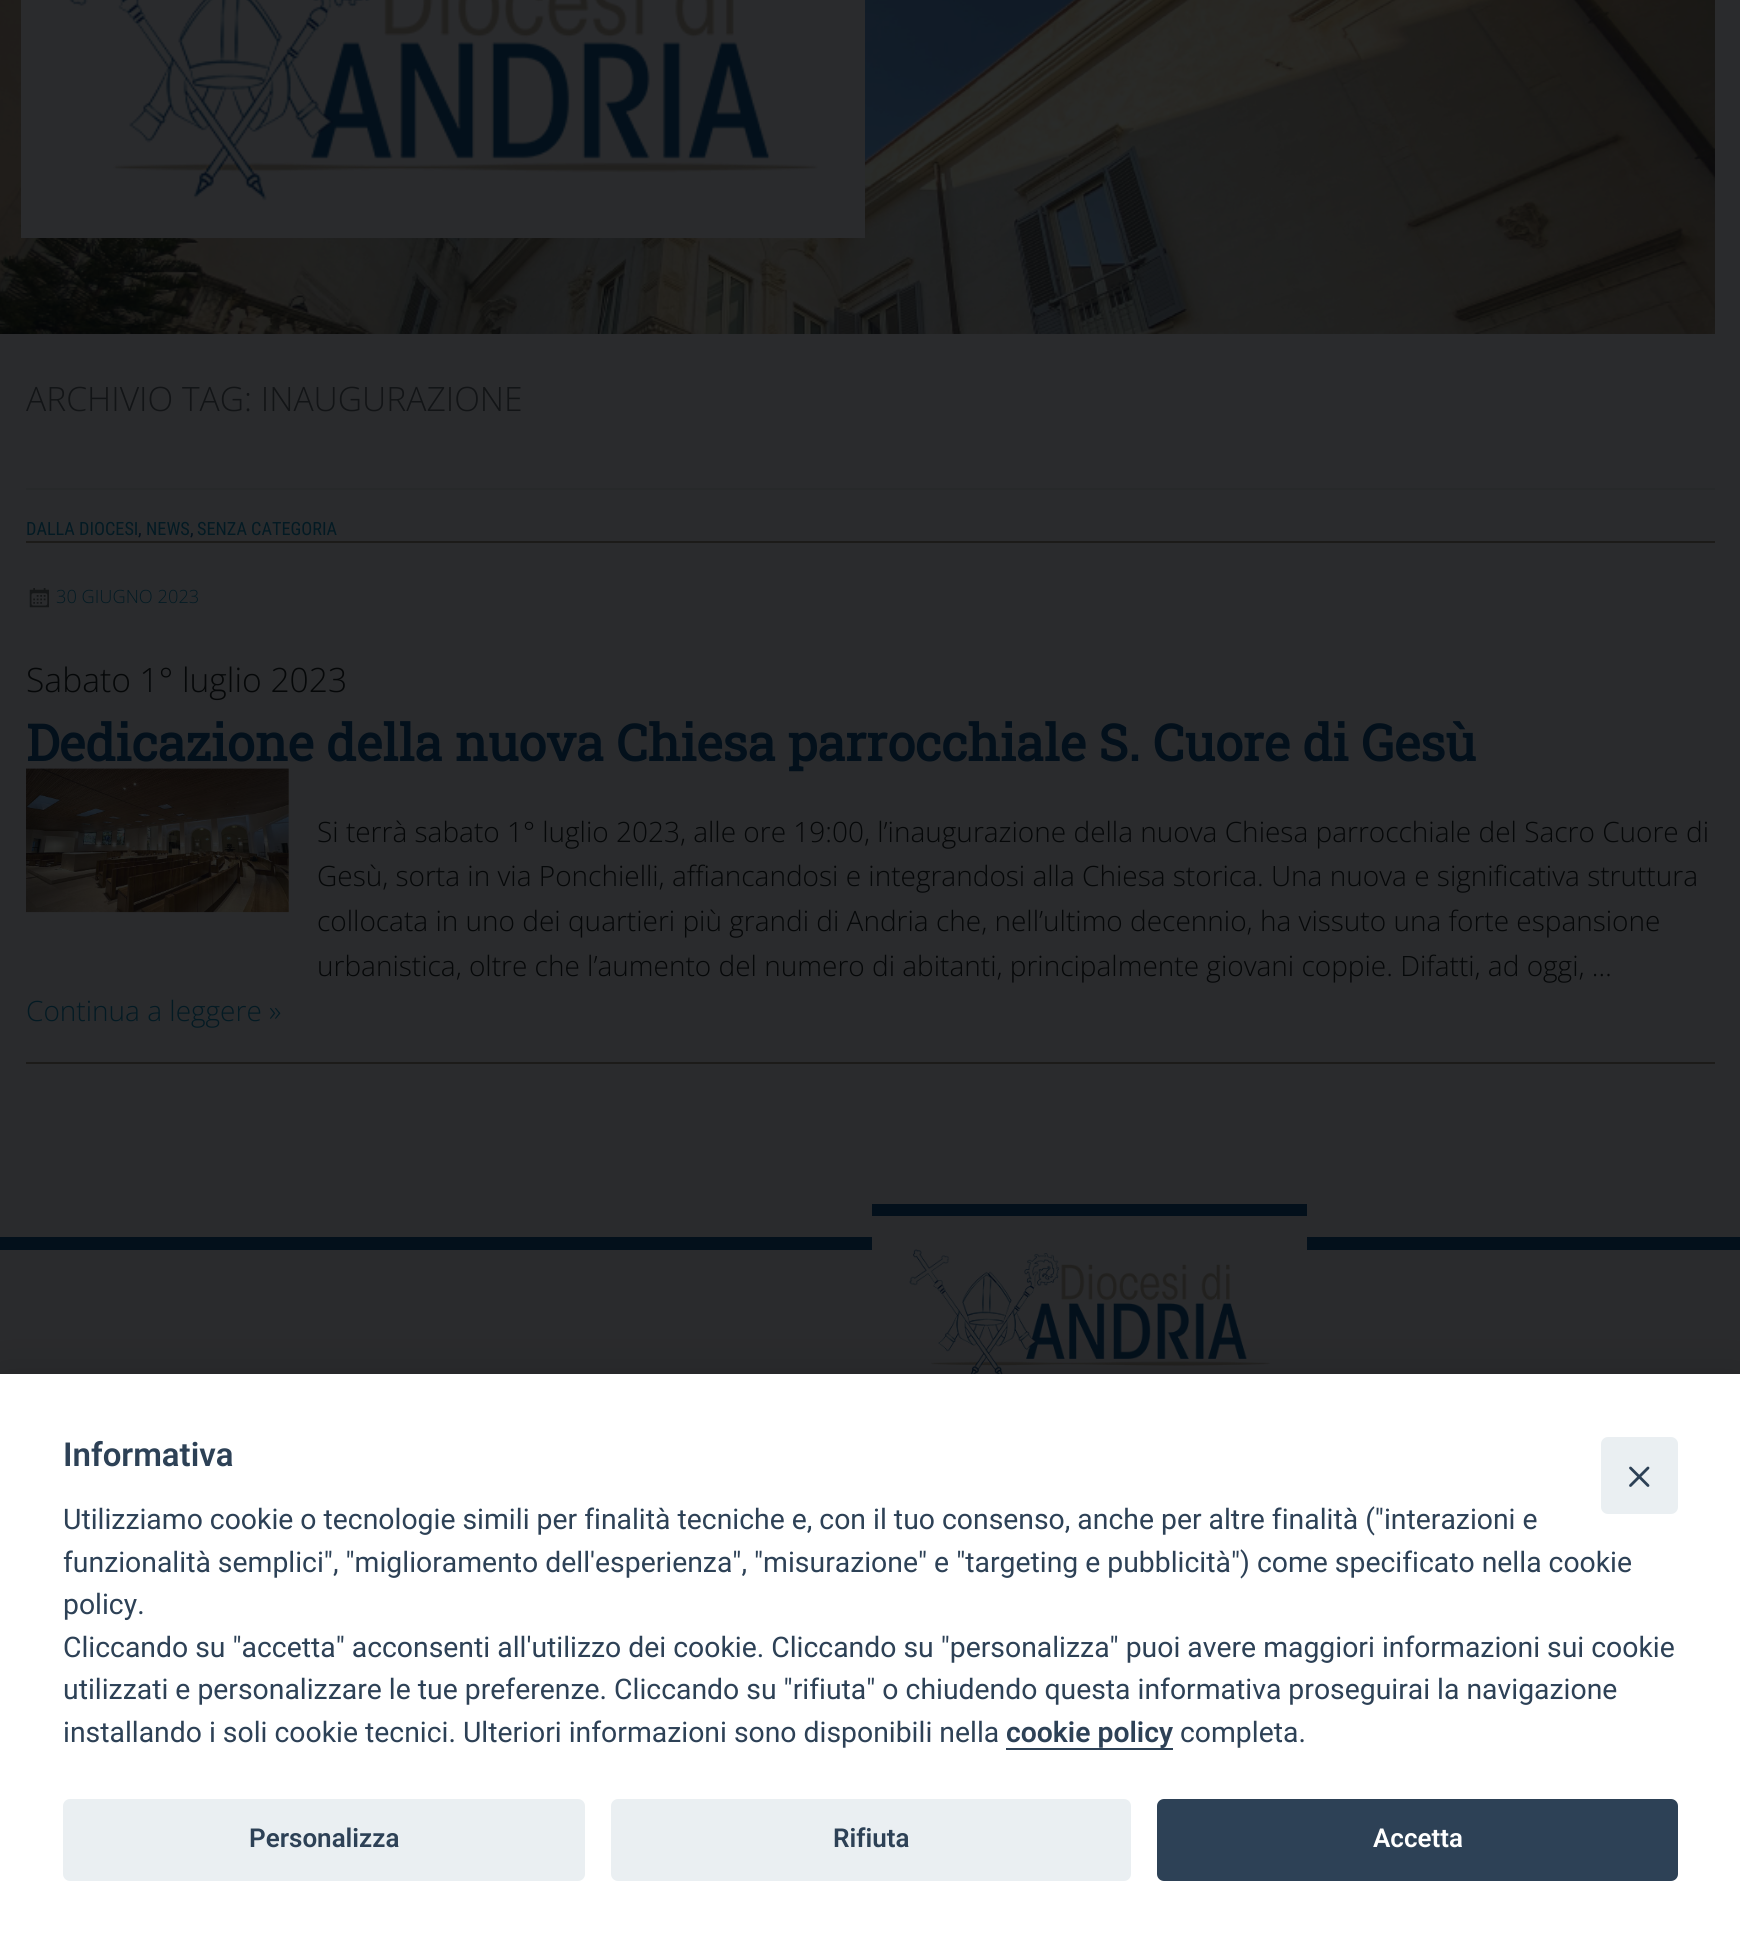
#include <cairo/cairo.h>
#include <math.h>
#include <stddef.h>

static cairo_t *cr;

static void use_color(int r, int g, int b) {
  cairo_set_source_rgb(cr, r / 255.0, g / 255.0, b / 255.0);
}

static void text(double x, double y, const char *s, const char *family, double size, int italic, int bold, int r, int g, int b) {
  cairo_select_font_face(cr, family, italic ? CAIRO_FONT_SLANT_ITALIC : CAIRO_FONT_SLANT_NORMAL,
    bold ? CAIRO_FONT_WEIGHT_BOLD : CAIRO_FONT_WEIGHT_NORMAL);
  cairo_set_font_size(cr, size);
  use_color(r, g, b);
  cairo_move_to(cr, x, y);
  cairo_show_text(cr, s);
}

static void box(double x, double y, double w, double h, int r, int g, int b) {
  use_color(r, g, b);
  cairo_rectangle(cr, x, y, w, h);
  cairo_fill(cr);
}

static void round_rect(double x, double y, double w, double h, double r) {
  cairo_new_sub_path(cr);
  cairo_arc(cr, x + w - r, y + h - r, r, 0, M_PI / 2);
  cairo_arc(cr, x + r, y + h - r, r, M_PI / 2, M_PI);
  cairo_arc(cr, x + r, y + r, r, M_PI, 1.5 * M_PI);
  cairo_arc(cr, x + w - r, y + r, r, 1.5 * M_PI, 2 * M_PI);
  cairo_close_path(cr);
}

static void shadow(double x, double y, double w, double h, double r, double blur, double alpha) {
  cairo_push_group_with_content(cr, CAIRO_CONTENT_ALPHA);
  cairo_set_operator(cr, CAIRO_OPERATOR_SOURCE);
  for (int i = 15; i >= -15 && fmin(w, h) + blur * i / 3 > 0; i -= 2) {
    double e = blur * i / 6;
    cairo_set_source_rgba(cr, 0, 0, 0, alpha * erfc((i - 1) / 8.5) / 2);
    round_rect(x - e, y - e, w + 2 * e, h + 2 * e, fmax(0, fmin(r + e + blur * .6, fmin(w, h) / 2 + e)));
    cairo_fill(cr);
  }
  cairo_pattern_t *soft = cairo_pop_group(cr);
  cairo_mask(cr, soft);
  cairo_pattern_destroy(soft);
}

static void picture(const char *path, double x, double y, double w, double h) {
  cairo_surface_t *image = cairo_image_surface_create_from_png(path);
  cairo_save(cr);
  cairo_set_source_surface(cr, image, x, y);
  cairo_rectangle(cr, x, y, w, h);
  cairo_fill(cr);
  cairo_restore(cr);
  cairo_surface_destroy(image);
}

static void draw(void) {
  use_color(42, 43, 45);
  cairo_paint(cr);
  picture("img_01.png", 0, 0, 1715, 334);
  box(21, 0, 844, 238, 42, 43, 45);
  picture("img_02.png", 69, 0, 749, 201);
  box(26, 488, 1689, 2, 39, 41, 42);
  box(26, 1062, 1689, 2, 28, 27, 25);
  box(26, 541, 1689, 2, 28, 27, 25);
  picture("img_03.png", 29, 588, 20, 20);
  picture("img_04.png", 26, 768, 263, 145);
  box(0, 1237, 1740, 13, 3, 16, 27);
  box(872, 1237, 435, 13, 42, 43, 45);
  box(872, 1204, 435, 12, 3, 16, 27);
  picture("img_05.png", 909, 1249, 361, 125);
  use_color(2, 2, 3);
  shadow(0, 1393, 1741, 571, 0, 29.5, 0.28);
  box(0, 1374, 1740, 569, 255, 255, 255);
  use_color(234, 239, 242);
  round_rect(1601, 1437, 77, 77, 7);
  cairo_fill(cr);
  use_color(45, 65, 86);
  cairo_new_path(cr);
  cairo_move_to(cr, 1649, 1467);
  cairo_curve_to(cr, 1649.5, 1467.5, 1649.5, 1468.5, 1649, 1469);
  cairo_line_to(cr, 1631.5, 1486.5);
  cairo_curve_to(cr, 1631, 1487, 1630, 1487, 1629.5, 1486.5);
  cairo_curve_to(cr, 1629, 1486, 1629, 1485, 1629.5, 1484.5);
  cairo_line_to(cr, 1647, 1467);
  cairo_curve_to(cr, 1647.5, 1466.5, 1648.5, 1466.5, 1649, 1467);
  cairo_close_path(cr);
  cairo_fill(cr);
  cairo_new_path(cr);
  cairo_move_to(cr, 1629.5, 1467);
  cairo_curve_to(cr, 1630, 1466.5, 1631, 1466.5, 1631.5, 1467);
  cairo_line_to(cr, 1649, 1484.5);
  cairo_curve_to(cr, 1649.5, 1485, 1649.5, 1486, 1649, 1486.5);
  cairo_curve_to(cr, 1648.5, 1487, 1647.5, 1487, 1647, 1486.5);
  cairo_line_to(cr, 1629.5, 1469);
  cairo_curve_to(cr, 1629, 1468.5, 1629, 1467.5, 1629.5, 1467);
  cairo_close_path(cr);
  cairo_fill(cr);
  box(1006, 1748, 167, 2, 45, 65, 86);
  use_color(234, 239, 242);
  round_rect(63, 1799, 522, 82, 7);
  cairo_fill(cr);
  round_rect(611, 1799, 520, 82, 7);
  cairo_fill(cr);
  use_color(45, 65, 86);
  round_rect(1157, 1799, 521, 82, 7);
  cairo_fill(cr);
  text(26, 411, "ARCHIVIO TAG: INAUGURAZIONE", "Open Sans Light", 33.6, 0, 0, 18, 20, 22);
  text(26, 535, "DALLA DIOCESI", "Roboto Condensed", 18.25, 0, 0, 3, 26, 35);
  text(138, 535, ",", "Roboto Condensed", 18.25, 0, 0, 3, 16, 27);
  text(146, 535, "NEWS", "Roboto Condensed", 18.25, 0, 0, 3, 26, 35);
  text(190, 535, ",", "Roboto Condensed", 18.25, 0, 0, 3, 16, 27);
  text(197, 535, "SENZA CATEGORIA", "Roboto Condensed", 18.25, 0, 0, 3, 26, 35);
  text(56, 603, "30 GIUGNO 2023", "Open Sans Light", 18.25, 0, 0, 3, 26, 35);
  text(26, 692, "Sabato 1° luglio 2023", "Open Sans Light", 33.6, 0, 0, 5, 7, 8);
  text(26, 761, "Dedicazione della nuova Chiesa parrocchiale S. Cuore di Gesù", "Roboto Slab", 50.4, 0, 1, 3, 16, 27);
  text(317, 842, "Si terrà sabato 1° luglio 2023, alle ore 19:00, l’inaugurazione della nuova Chiesa parrocchiale del Sacro Cuore di", "Open Sans Light", 28, 0, 0, 5, 7, 8);
  text(317, 886, "Gesù, sorta in via Ponchielli, affiancandosi e integrandosi alla Chiesa storica. Una nuova e significativa struttura", "Open Sans Light", 28, 0, 0, 5, 7, 8);
  text(317, 931, "collocata in uno dei quartieri più grandi di Andria che, nell’ultimo decennio, ha vissuto una forte espansione", "Open Sans Light", 28, 0, 0, 5, 7, 8);
  text(317, 976, "urbanistica, oltre che l’aumento del numero di abitanti, principalmente giovani coppie. Difatti, ad oggi, …", "Open Sans Light", 28, 0, 0, 5, 7, 8);
  text(26, 1021, "Continua a leggere »", "Open Sans Light", 28, 0, 0, 3, 26, 35);
  text(63, 1466, "Informativa", "Roboto SemiBold", 33, 0, 0, 45, 65, 86);
  text(63, 1529, "Utilizziamo cookie o tecnologie simili per finalità tecniche e, con il tuo consenso, anche per altre finalità (\"interazioni e", "Roboto", 28.35, 0, 0, 45, 65, 86);
  text(63, 1572, "funzionalità semplici\", \"miglioramento dell'esperienza\", \"misurazione\" e \"targeting e pubblicità\") come specificato nella cookie", "Roboto", 28.35, 0, 0, 45, 65, 86);
  text(63, 1614, "policy.", "Roboto", 28.35, 0, 0, 45, 65, 86);
  text(63, 1657, "Cliccando su \"accetta\" acconsenti all'utilizzo dei cookie. Cliccando su \"personalizza\" puoi avere maggiori informazioni sui cookie", "Roboto", 28.35, 0, 0, 45, 65, 86);
  text(63, 1699, "utilizzati e personalizzare le tue preferenze. Cliccando su \"rifiuta\" o chiudendo questa informativa proseguirai la navigazione", "Roboto", 28.35, 0, 0, 45, 65, 86);
  text(63, 1742, "installando i soli cookie tecnici. Ulteriori informazioni sono disponibili nella", "Roboto", 28.35, 0, 0, 45, 65, 86);
  text(1006, 1742, "cookie policy", "Roboto SemiBold", 28.35, 0, 0, 45, 65, 86);
  text(1180, 1742, "completa.", "Roboto", 28.35, 0, 0, 45, 65, 86);
  text(249, 1847, "Personalizza", "Roboto SemiBold", 26, 0, 0, 45, 65, 86);
  text(833, 1847, "Rifiuta", "Roboto SemiBold", 26, 0, 0, 45, 65, 86);
  text(1373, 1847, "Accetta", "Roboto SemiBold", 26, 0, 0, 255, 255, 255);
}

int main(void) {
  cairo_surface_t *surface = cairo_image_surface_create(CAIRO_FORMAT_RGB24, 1740, 1943);
  cr = cairo_create(surface);
  cairo_font_options_t *options = cairo_font_options_create();
  cairo_font_options_set_hint_metrics(options, CAIRO_HINT_METRICS_OFF);
  cairo_font_options_set_hint_style(options, CAIRO_HINT_STYLE_NONE);
  cairo_set_font_options(cr, options);
  cairo_set_miter_limit(cr, 4);
  draw();
  cairo_surface_write_to_png(surface, "out.png");
  cairo_font_options_destroy(options);
  cairo_destroy(cr);
  cairo_surface_destroy(surface);
  return 0;
}
